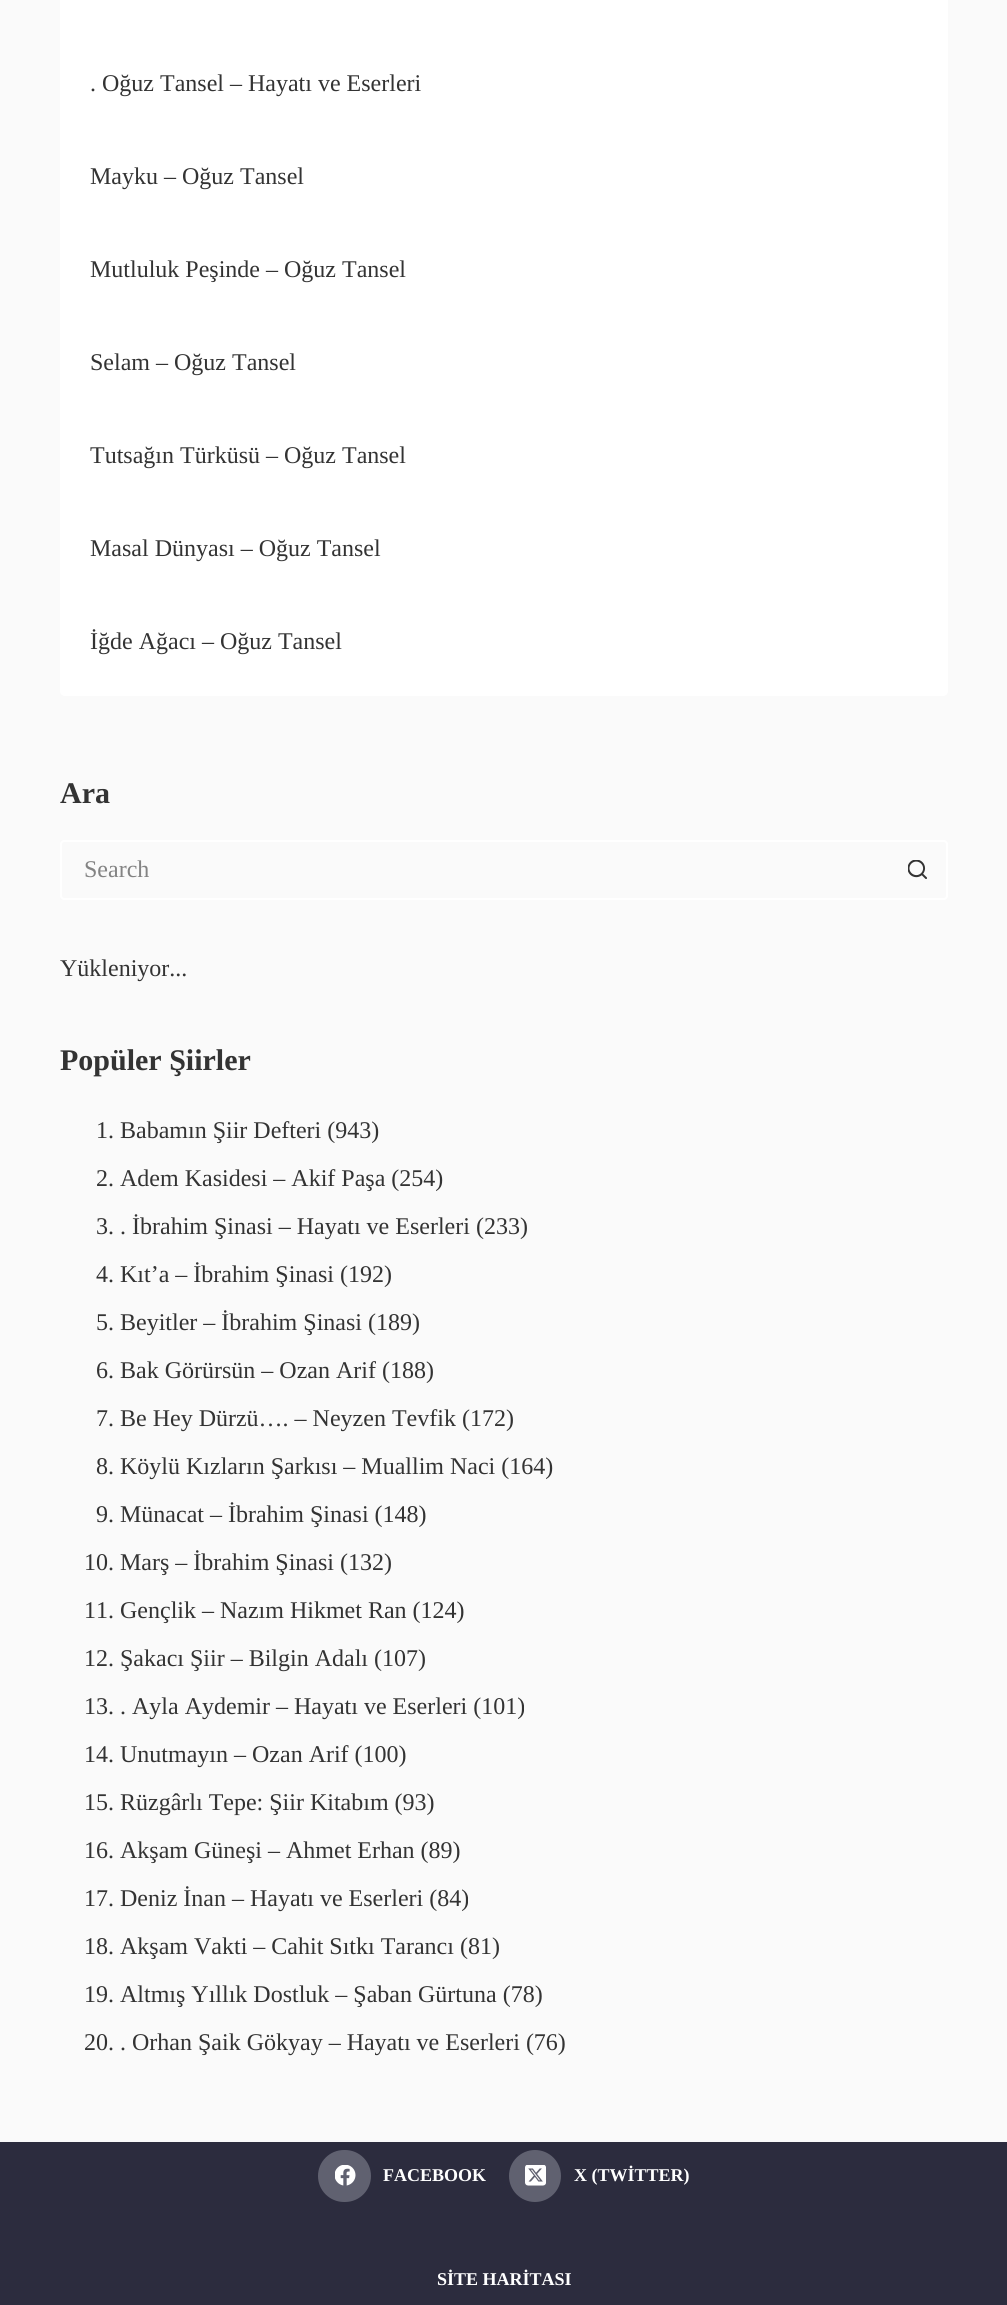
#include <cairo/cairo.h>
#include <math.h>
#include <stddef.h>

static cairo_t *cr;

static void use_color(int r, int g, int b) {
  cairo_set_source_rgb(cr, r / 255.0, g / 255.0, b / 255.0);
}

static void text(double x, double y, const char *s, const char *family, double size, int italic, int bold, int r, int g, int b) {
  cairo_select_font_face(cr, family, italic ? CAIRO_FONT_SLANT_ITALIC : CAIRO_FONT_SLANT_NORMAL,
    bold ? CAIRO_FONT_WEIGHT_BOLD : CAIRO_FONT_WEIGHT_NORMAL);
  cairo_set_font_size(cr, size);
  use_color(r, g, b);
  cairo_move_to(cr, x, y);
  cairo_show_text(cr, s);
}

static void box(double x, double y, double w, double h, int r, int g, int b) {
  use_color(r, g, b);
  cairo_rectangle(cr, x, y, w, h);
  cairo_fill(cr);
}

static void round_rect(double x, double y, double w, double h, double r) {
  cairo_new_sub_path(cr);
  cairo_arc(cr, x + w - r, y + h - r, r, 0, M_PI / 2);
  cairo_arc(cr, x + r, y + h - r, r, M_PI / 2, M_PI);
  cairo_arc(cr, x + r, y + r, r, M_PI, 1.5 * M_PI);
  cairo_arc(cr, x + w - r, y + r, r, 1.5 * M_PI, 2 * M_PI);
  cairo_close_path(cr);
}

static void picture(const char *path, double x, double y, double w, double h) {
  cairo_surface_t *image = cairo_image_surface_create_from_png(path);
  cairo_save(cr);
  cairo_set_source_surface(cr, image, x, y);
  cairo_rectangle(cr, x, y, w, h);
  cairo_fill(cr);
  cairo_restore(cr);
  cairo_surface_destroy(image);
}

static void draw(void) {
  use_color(250, 250, 250);
  cairo_paint(cr);
  use_color(255, 255, 255);
  round_rect(60, -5, 888, 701, 5);
  cairo_fill(cr);
  cairo_set_fill_rule(cr, CAIRO_FILL_RULE_EVEN_ODD);
  cairo_new_path(cr);
  cairo_move_to(cr, 64, 840);
  cairo_line_to(cr, 888, 840);
  cairo_line_to(cr, 888, 900);
  cairo_line_to(cr, 64, 900);
  cairo_curve_to(cr, 62, 900, 60, 898, 60, 896);
  cairo_line_to(cr, 60, 844);
  cairo_curve_to(cr, 60, 842, 62, 840, 64, 840);
  cairo_close_path(cr);
  cairo_move_to(cr, 64, 842);
  cairo_line_to(cr, 888, 842);
  cairo_line_to(cr, 888, 898);
  cairo_line_to(cr, 64, 898);
  cairo_curve_to(cr, 63, 898, 62, 897, 62, 896);
  cairo_line_to(cr, 62, 844);
  cairo_curve_to(cr, 62, 843, 63, 842, 64, 842);
  cairo_close_path(cr);
  cairo_fill(cr);
  cairo_new_path(cr);
  cairo_move_to(cr, 888, 840);
  cairo_line_to(cr, 944, 840);
  cairo_curve_to(cr, 946, 840, 948, 842, 948, 844);
  cairo_line_to(cr, 948, 896);
  cairo_curve_to(cr, 948, 898, 946, 900, 944, 900);
  cairo_line_to(cr, 888, 900);
  cairo_close_path(cr);
  cairo_move_to(cr, 888, 842);
  cairo_line_to(cr, 944, 842);
  cairo_curve_to(cr, 945, 842, 946, 843, 946, 844);
  cairo_line_to(cr, 946, 896);
  cairo_curve_to(cr, 946, 897, 945, 898, 944, 898);
  cairo_line_to(cr, 888, 898);
  cairo_close_path(cr);
  cairo_fill(cr);
  picture("img_01.png", 908, 860, 19, 19);
  box(0, 2142, 1007, 163, 44, 44, 62);
  use_color(96, 97, 112);
  round_rect(318, 2150, 53, 52, 26);
  cairo_fill(cr);
  picture("img_02.png", 335, 2165, 21, 21);
  cairo_arc(cr, 535, 2176, 26, 0, 2 * M_PI);
  cairo_fill(cr);
  picture("img_03.png", 525, 2165, 21, 21);
  text(90, 91, ". Oğuz Tansel – Hayatı ve Eserleri", "Liberation Serif", 24, 0, 0, 51, 51, 51);
  text(90, 184, "Mayku – Oğuz Tansel", "Liberation Serif", 24, 0, 0, 51, 51, 51);
  text(90, 277, "Mutluluk Peşinde – Oğuz Tansel", "Liberation Serif", 24, 0, 0, 51, 51, 51);
  text(90, 370, "Selam – Oğuz Tansel", "Liberation Serif", 24, 0, 0, 51, 51, 51);
  text(90, 463, "Tutsağın Türküsü – Oğuz Tansel", "Liberation Serif", 24, 0, 0, 51, 51, 51);
  text(90, 556, "Masal Dünyası – Oğuz Tansel", "Liberation Serif", 24, 0, 0, 51, 51, 51);
  text(90, 649, "İğde Ağacı – Oğuz Tansel", "Liberation Serif", 24, 0, 0, 51, 51, 51);
  text(60, 803, "Ara", "Liberation Serif", 30, 0, 1, 51, 51, 51);
  text(84, 877, "Search", "Liberation Serif", 24, 0, 0, 131, 131, 131);
  text(60, 976, "Yükleniyor...", "Liberation Serif", 24, 0, 0, 51, 51, 51);
  text(60, 1070, "Popüler Şiirler", "Liberation Serif", 30, 0, 1, 51, 51, 51);
  text(96, 1138, "1. Babamın Şiir Defteri (943)", "Liberation Serif", 24, 0, 0, 51, 51, 51);
  text(96, 1186, "2. Adem Kasidesi – Akif Paşa (254)", "Liberation Serif", 24, 0, 0, 51, 51, 51);
  text(96, 1234, "3. . İbrahim Şinasi – Hayatı ve Eserleri (233)", "Liberation Serif", 24, 0, 0, 51, 51, 51);
  text(96, 1282, "4. Kıt’a – İbrahim Şinasi (192)", "Liberation Serif", 24, 0, 0, 51, 51, 51);
  text(96, 1330, "5. Beyitler – İbrahim Şinasi (189)", "Liberation Serif", 24, 0, 0, 51, 51, 51);
  text(96, 1378, "6. Bak Görürsün – Ozan Arif (188)", "Liberation Serif", 24, 0, 0, 51, 51, 51);
  text(96, 1426, "7. Be Hey Dürzü…. – Neyzen Tevfik (172)", "Liberation Serif", 24, 0, 0, 51, 51, 51);
  text(96, 1474, "8. Köylü Kızların Şarkısı – Muallim Naci (164)", "Liberation Serif", 24, 0, 0, 51, 51, 51);
  text(96, 1522, "9. Münacat – İbrahim Şinasi (148)", "Liberation Serif", 24, 0, 0, 51, 51, 51);
  text(84, 1570, "10. Marş – İbrahim Şinasi (132)", "Liberation Serif", 24, 0, 0, 51, 51, 51);
  text(84, 1618, "11. Gençlik – Nazım Hikmet Ran (124)", "Liberation Serif", 24, 0, 0, 51, 51, 51);
  text(84, 1666, "12. Şakacı Şiir – Bilgin Adalı (107)", "Liberation Serif", 24, 0, 0, 51, 51, 51);
  text(84, 1714, "13. . Ayla Aydemir – Hayatı ve Eserleri (101)", "Liberation Serif", 24, 0, 0, 51, 51, 51);
  text(84, 1762, "14. Unutmayın – Ozan Arif (100)", "Liberation Serif", 24, 0, 0, 51, 51, 51);
  text(84, 1810, "15. Rüzgârlı Tepe: Şiir Kitabım (93)", "Liberation Serif", 24, 0, 0, 51, 51, 51);
  text(84, 1858, "16. Akşam Güneşi – Ahmet Erhan (89)", "Liberation Serif", 24, 0, 0, 51, 51, 51);
  text(84, 1906, "17. Deniz İnan – Hayatı ve Eserleri (84)", "Liberation Serif", 24, 0, 0, 51, 51, 51);
  text(84, 1954, "18. Akşam Vakti – Cahit Sıtkı Tarancı (81)", "Liberation Serif", 24, 0, 0, 51, 51, 51);
  text(84, 2002, "19. Altmış Yıllık Dostluk – Şaban Gürtuna (78)", "Liberation Serif", 24, 0, 0, 51, 51, 51);
  text(84, 2050, "20. . Orhan Şaik Gökyay – Hayatı ve Eserleri (76)", "Liberation Serif", 24, 0, 0, 51, 51, 51);
  text(383, 2181, "FACEBOOK", "Liberation Serif", 18, 0, 1, 255, 255, 255);
  text(574, 2181, "X (TWİTTER)", "Liberation Serif", 18, 0, 1, 255, 255, 255);
  text(437, 2285, "SİTE HARİTASI", "Liberation Serif", 18, 0, 1, 255, 255, 255);
}

int main(void) {
  cairo_surface_t *surface = cairo_image_surface_create(CAIRO_FORMAT_RGB24, 1007, 2305);
  cr = cairo_create(surface);
  cairo_font_options_t *options = cairo_font_options_create();
  cairo_font_options_set_hint_metrics(options, CAIRO_HINT_METRICS_OFF);
  cairo_font_options_set_hint_style(options, CAIRO_HINT_STYLE_NONE);
  cairo_set_font_options(cr, options);
  cairo_set_miter_limit(cr, 4);
  draw();
  cairo_surface_write_to_png(surface, "out.png");
  cairo_font_options_destroy(options);
  cairo_destroy(cr);
  cairo_surface_destroy(surface);
  return 0;
}
